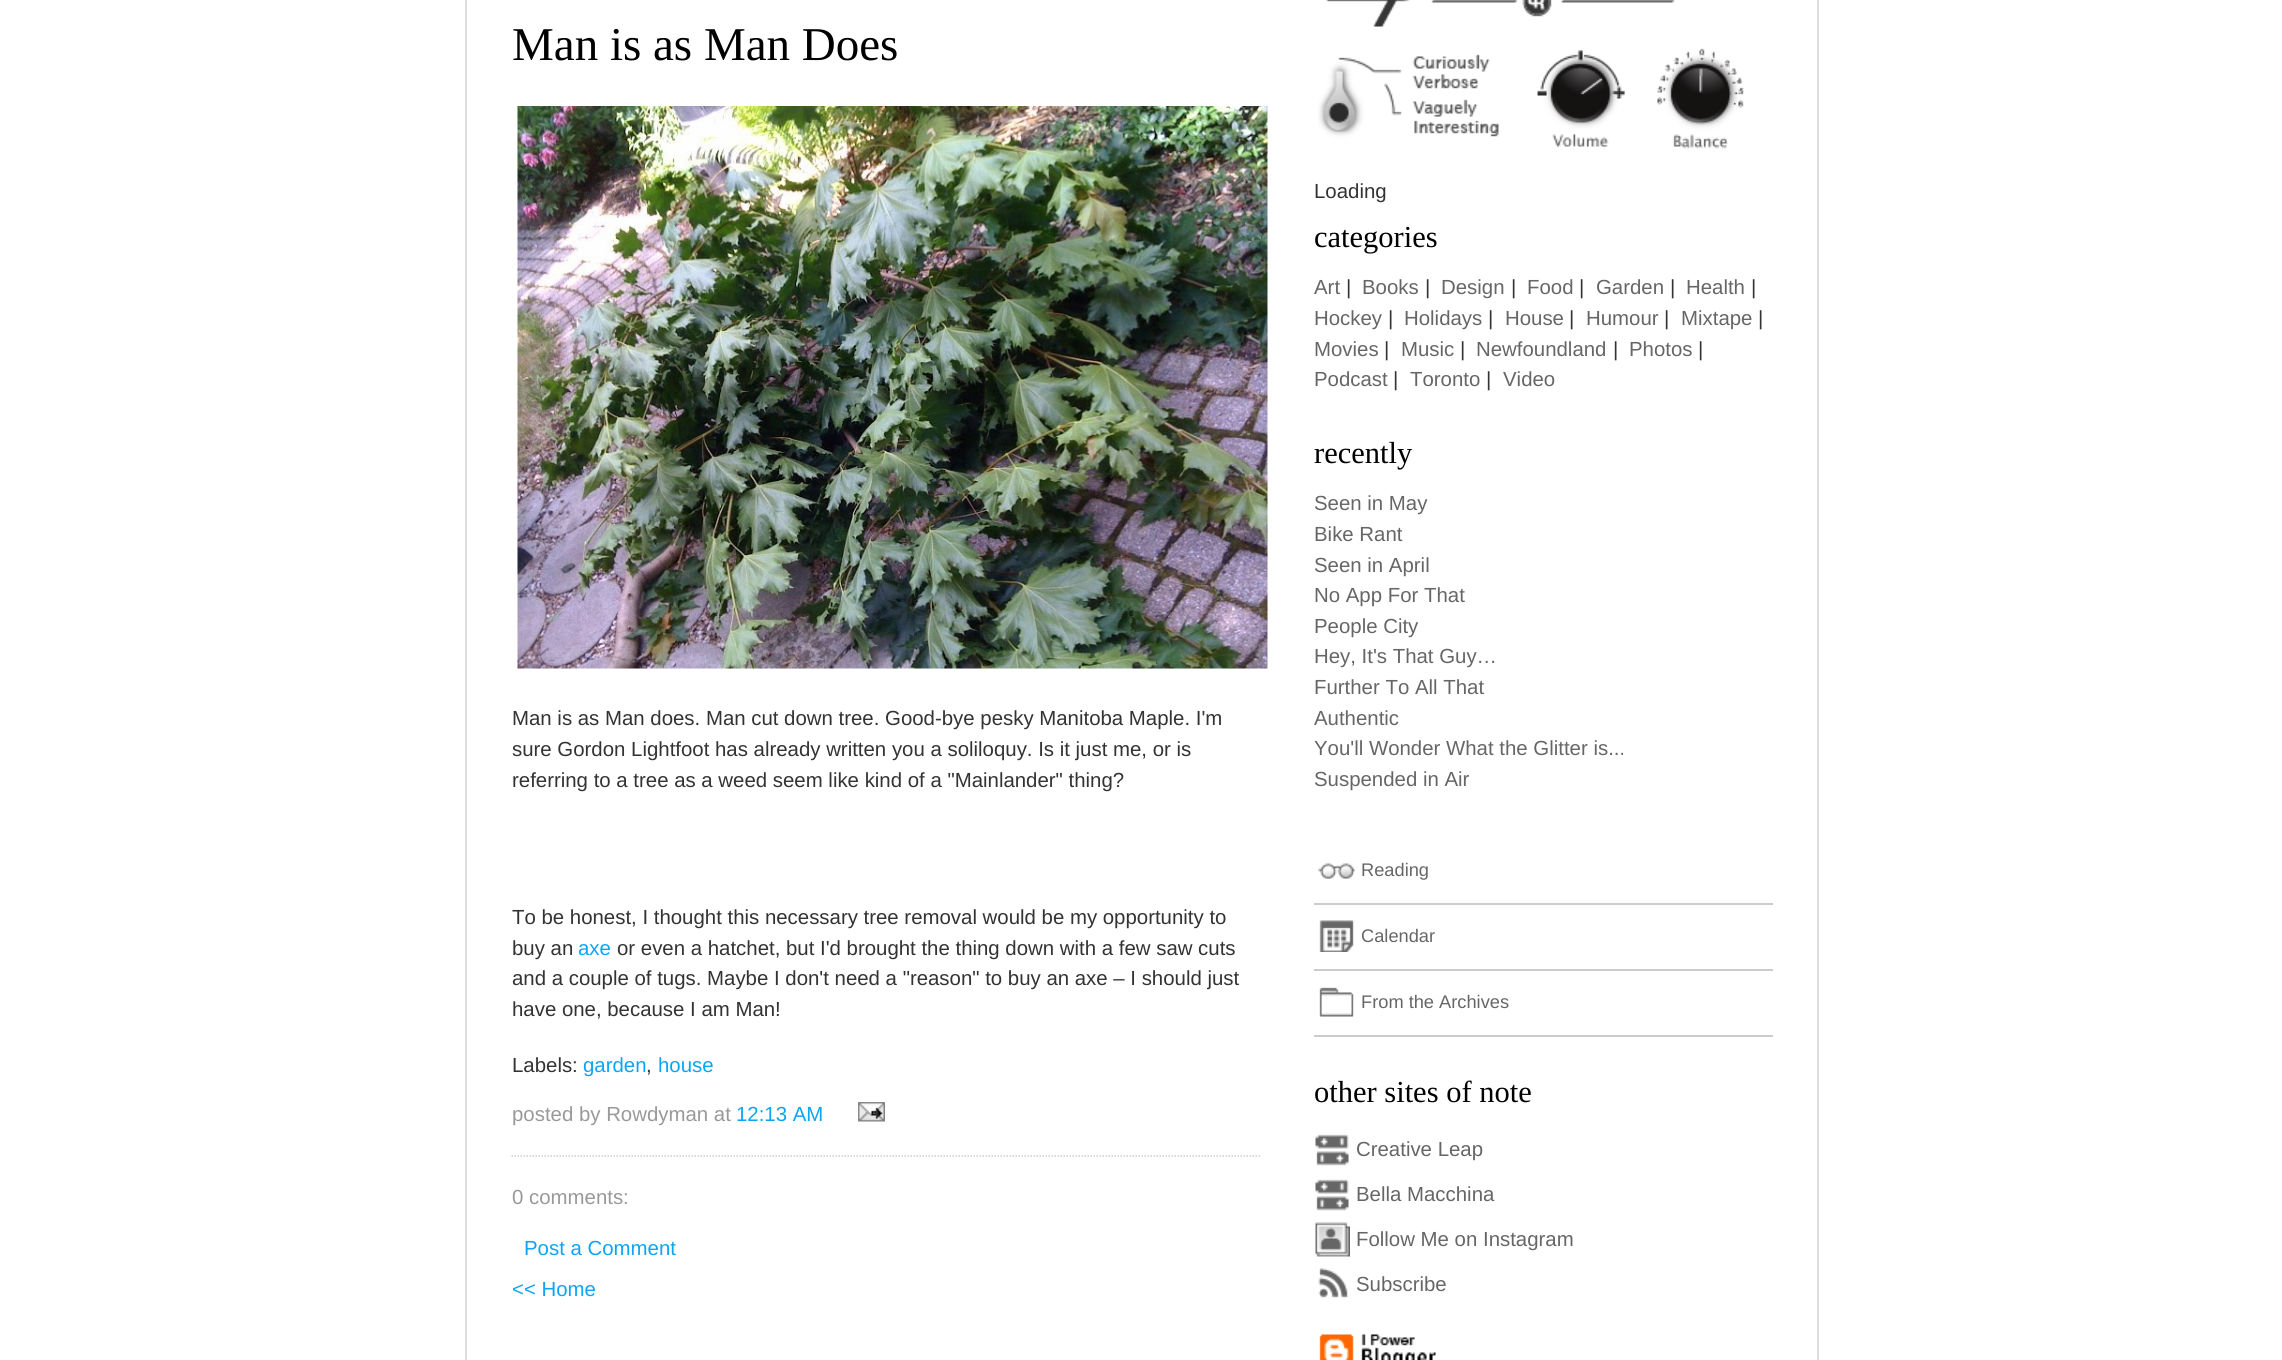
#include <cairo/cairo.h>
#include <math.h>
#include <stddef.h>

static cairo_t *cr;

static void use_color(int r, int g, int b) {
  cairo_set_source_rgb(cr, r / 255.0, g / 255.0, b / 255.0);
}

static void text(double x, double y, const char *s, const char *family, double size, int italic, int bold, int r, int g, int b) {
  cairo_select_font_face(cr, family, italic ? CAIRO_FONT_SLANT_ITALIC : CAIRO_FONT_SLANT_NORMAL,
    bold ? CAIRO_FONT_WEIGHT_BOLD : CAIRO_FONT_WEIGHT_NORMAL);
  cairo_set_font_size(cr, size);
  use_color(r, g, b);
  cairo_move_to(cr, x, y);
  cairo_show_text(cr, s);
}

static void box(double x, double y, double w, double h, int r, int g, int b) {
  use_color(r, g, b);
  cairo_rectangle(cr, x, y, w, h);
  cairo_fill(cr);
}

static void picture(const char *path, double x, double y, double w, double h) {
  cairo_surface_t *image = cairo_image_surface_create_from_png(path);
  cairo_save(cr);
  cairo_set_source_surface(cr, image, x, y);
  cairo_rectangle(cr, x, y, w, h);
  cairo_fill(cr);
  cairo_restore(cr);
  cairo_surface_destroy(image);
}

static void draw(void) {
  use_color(255, 255, 255);
  cairo_paint(cr);
  box(1817, 0, 2, 1360, 222, 222, 222);
  box(465, 0, 2, 1360, 222, 222, 222);
  cairo_new_path(cr);
  cairo_move_to(cr, 511.5, 1156);
  cairo_line_to(cr, 1261.5, 1156);
  use_color(204, 204, 204);
  cairo_set_line_width(cr, 1.5);
  cairo_set_dash(cr, (double[]){1.5, 1.5}, 2, 0);
  cairo_stroke(cr);
  picture("img_01.png", 517, 106, 751, 563);
  picture("img_02.png", 858, 1102, 27, 20);
  picture("img_03.png", 1318, 0, 426, 149);
  box(1314, 903, 459, 2, 204, 204, 204);
  picture("img_04.png", 1318, 863, 37, 16);
  box(1314, 969, 459, 2, 204, 204, 204);
  picture("img_05.png", 1319, 920, 35, 32);
  box(1314, 1035, 459, 2, 204, 204, 204);
  picture("img_06.png", 1319, 987, 35, 30);
  picture("img_07.png", 1315, 1134, 34, 32);
  picture("img_07.png", 1315, 1179, 34, 32);
  picture("img_08.png", 1315, 1222, 35, 35);
  picture("img_09.png", 1318, 1268, 31, 30);
  picture("img_10.png", 1319, 1334, 117, 26);
  text(512, 60, "Man is as Man Does", "Liberation Serif", 47, 0, 0, 0, 0, 0);
  text(512, 725, "Man is as Man does. Man cut down tree. Good-bye pesky Manitoba Maple. I'm", "Liberation Sans", 20.4, 0, 0, 51, 51, 51);
  text(512, 756, "sure Gordon Lightfoot has already written you a soliloquy. Is it just me, or is", "Liberation Sans", 20.4, 0, 0, 51, 51, 51);
  text(512, 787, "referring to a tree as a weed seem like kind of a \"Mainlander\" thing?", "Liberation Sans", 20.4, 0, 0, 51, 51, 51);
  text(512, 924, "To be honest, I thought this necessary tree removal would be my opportunity to", "Liberation Sans", 20.4, 0, 0, 51, 51, 51);
  text(512, 955, "buy an", "Liberation Sans", 20.4, 0, 0, 51, 51, 51);
  text(578, 955, "axe", "Liberation Sans", 20.4, 0, 0, 12, 165, 245);
  text(617, 955, "or even a hatchet, but I'd brought the thing down with a few saw cuts", "Liberation Sans", 20.4, 0, 0, 51, 51, 51);
  text(512, 985, "and a couple of tugs. Maybe I don't need a \"reason\" to buy an axe – I should just", "Liberation Sans", 20.4, 0, 0, 51, 51, 51);
  text(512, 1016, "have one, because I am Man!", "Liberation Sans", 20.4, 0, 0, 51, 51, 51);
  text(512, 1072, "Labels:", "Liberation Sans", 20.4, 0, 0, 51, 51, 51);
  text(583, 1072, "garden", "Liberation Sans", 20.4, 0, 0, 12, 165, 245);
  text(646, 1072, ",", "Liberation Sans", 20.4, 0, 0, 51, 51, 51);
  text(658, 1072, "house", "Liberation Sans", 20.4, 0, 0, 12, 165, 245);
  text(512, 1121, "posted by Rowdyman at", "Liberation Sans", 20.4, 0, 0, 153, 153, 153);
  text(736, 1121, "12:13 AM", "Liberation Sans", 20.4, 0, 0, 12, 165, 245);
  text(512, 1204, "0 comments:", "Liberation Sans", 20.4, 0, 0, 153, 153, 153);
  text(524, 1255, "Post a Comment", "Liberation Sans", 20.4, 0, 0, 12, 165, 245);
  text(512, 1296, "<< Home", "Liberation Sans", 20.4, 0, 0, 12, 165, 245);
  text(1314, 198, "Loading", "Liberation Sans", 20.4, 0, 0, 51, 51, 51);
  text(1314, 247, "categories", "Liberation Serif", 30.5, 0, 0, 0, 0, 0);
  text(1314, 294, "Art", "Liberation Sans", 20.4, 0, 0, 102, 102, 102);
  text(1346, 294, "|", "Liberation Sans", 20.4, 0, 0, 51, 51, 51);
  text(1362, 294, "Books", "Liberation Sans", 20.4, 0, 0, 102, 102, 102);
  text(1425, 294, "|", "Liberation Sans", 20.4, 0, 0, 51, 51, 51);
  text(1441, 294, "Design", "Liberation Sans", 20.4, 0, 0, 102, 102, 102);
  text(1511, 294, "|", "Liberation Sans", 20.4, 0, 0, 51, 51, 51);
  text(1527, 294, "Food", "Liberation Sans", 20.4, 0, 0, 102, 102, 102);
  text(1579, 294, "|", "Liberation Sans", 20.4, 0, 0, 51, 51, 51);
  text(1596, 294, "Garden", "Liberation Sans", 20.4, 0, 0, 102, 102, 102);
  text(1670, 294, "|", "Liberation Sans", 20.4, 0, 0, 51, 51, 51);
  text(1686, 294, "Health", "Liberation Sans", 20.4, 0, 0, 102, 102, 102);
  text(1751, 294, "|", "Liberation Sans", 20.4, 0, 0, 51, 51, 51);
  text(1314, 325, "Hockey", "Liberation Sans", 20.4, 0, 0, 102, 102, 102);
  text(1388, 325, "|", "Liberation Sans", 20.4, 0, 0, 51, 51, 51);
  text(1404, 325, "Holidays", "Liberation Sans", 20.4, 0, 0, 102, 102, 102);
  text(1488, 325, "|", "Liberation Sans", 20.4, 0, 0, 51, 51, 51);
  text(1505, 325, "House", "Liberation Sans", 20.4, 0, 0, 102, 102, 102);
  text(1569, 325, "|", "Liberation Sans", 20.4, 0, 0, 51, 51, 51);
  text(1586, 325, "Humour", "Liberation Sans", 20.4, 0, 0, 102, 102, 102);
  text(1664, 325, "|", "Liberation Sans", 20.4, 0, 0, 51, 51, 51);
  text(1681, 325, "Mixtape", "Liberation Sans", 20.4, 0, 0, 102, 102, 102);
  text(1758, 325, "|", "Liberation Sans", 20.4, 0, 0, 51, 51, 51);
  text(1314, 356, "Movies", "Liberation Sans", 20.4, 0, 0, 102, 102, 102);
  text(1384, 356, "|", "Liberation Sans", 20.4, 0, 0, 51, 51, 51);
  text(1401, 356, "Music", "Liberation Sans", 20.4, 0, 0, 102, 102, 102);
  text(1460, 356, "|", "Liberation Sans", 20.4, 0, 0, 51, 51, 51);
  text(1476, 356, "Newfoundland", "Liberation Sans", 20.4, 0, 0, 102, 102, 102);
  text(1613, 356, "|", "Liberation Sans", 20.4, 0, 0, 51, 51, 51);
  text(1629, 356, "Photos", "Liberation Sans", 20.4, 0, 0, 102, 102, 102);
  text(1698, 356, "|", "Liberation Sans", 20.4, 0, 0, 51, 51, 51);
  text(1314, 386, "Podcast", "Liberation Sans", 20.4, 0, 0, 102, 102, 102);
  text(1393, 386, "|", "Liberation Sans", 20.4, 0, 0, 51, 51, 51);
  text(1410, 386, "Toronto", "Liberation Sans", 20.4, 0, 0, 102, 102, 102);
  text(1486, 386, "|", "Liberation Sans", 20.4, 0, 0, 51, 51, 51);
  text(1503, 386, "Video", "Liberation Sans", 20.4, 0, 0, 102, 102, 102);
  text(1314, 463, "recently", "Liberation Serif", 30.5, 0, 0, 0, 0, 0);
  text(1314, 510, "Seen in May", "Liberation Sans", 20.4, 0, 0, 102, 102, 102);
  text(1314, 541, "Bike Rant", "Liberation Sans", 20.4, 0, 0, 102, 102, 102);
  text(1314, 572, "Seen in April", "Liberation Sans", 20.4, 0, 0, 102, 102, 102);
  text(1314, 602, "No App For That", "Liberation Sans", 20.4, 0, 0, 102, 102, 102);
  text(1314, 633, "People City", "Liberation Sans", 20.4, 0, 0, 102, 102, 102);
  text(1314, 663, "Hey, It's That Guy…", "Liberation Sans", 20.4, 0, 0, 102, 102, 102);
  text(1314, 694, "Further To All That", "Liberation Sans", 20.4, 0, 0, 102, 102, 102);
  text(1314, 725, "Authentic", "Liberation Sans", 20.4, 0, 0, 102, 102, 102);
  text(1314, 755, "You'll Wonder What the Glitter is...", "Liberation Sans", 20.4, 0, 0, 102, 102, 102);
  text(1314, 786, "Suspended in Air", "Liberation Sans", 20.4, 0, 0, 102, 102, 102);
  text(1361, 876, "Reading", "Liberation Sans", 18.25, 0, 0, 102, 102, 102);
  text(1361, 942, "Calendar", "Liberation Sans", 18.25, 0, 0, 102, 102, 102);
  text(1361, 1008, "From the Archives", "Liberation Sans", 18.25, 0, 0, 102, 102, 102);
  text(1314, 1102, "other sites of note", "Liberation Serif", 30.5, 0, 0, 0, 0, 0);
  text(1356, 1156, "Creative Leap", "Liberation Sans", 20.4, 0, 0, 102, 102, 102);
  text(1356, 1201, "Bella Macchina", "Liberation Sans", 20.4, 0, 0, 102, 102, 102);
  text(1356, 1246, "Follow Me on Instagram", "Liberation Sans", 20.4, 0, 0, 102, 102, 102);
  text(1356, 1291, "Subscribe", "Liberation Sans", 20.4, 0, 0, 102, 102, 102);
}

int main(void) {
  cairo_surface_t *surface = cairo_image_surface_create(CAIRO_FORMAT_RGB24, 2282, 1360);
  cr = cairo_create(surface);
  cairo_font_options_t *options = cairo_font_options_create();
  cairo_font_options_set_hint_metrics(options, CAIRO_HINT_METRICS_OFF);
  cairo_font_options_set_hint_style(options, CAIRO_HINT_STYLE_NONE);
  cairo_set_font_options(cr, options);
  cairo_set_miter_limit(cr, 4);
  draw();
  cairo_surface_write_to_png(surface, "out.png");
  cairo_font_options_destroy(options);
  cairo_destroy(cr);
  cairo_surface_destroy(surface);
  return 0;
}
